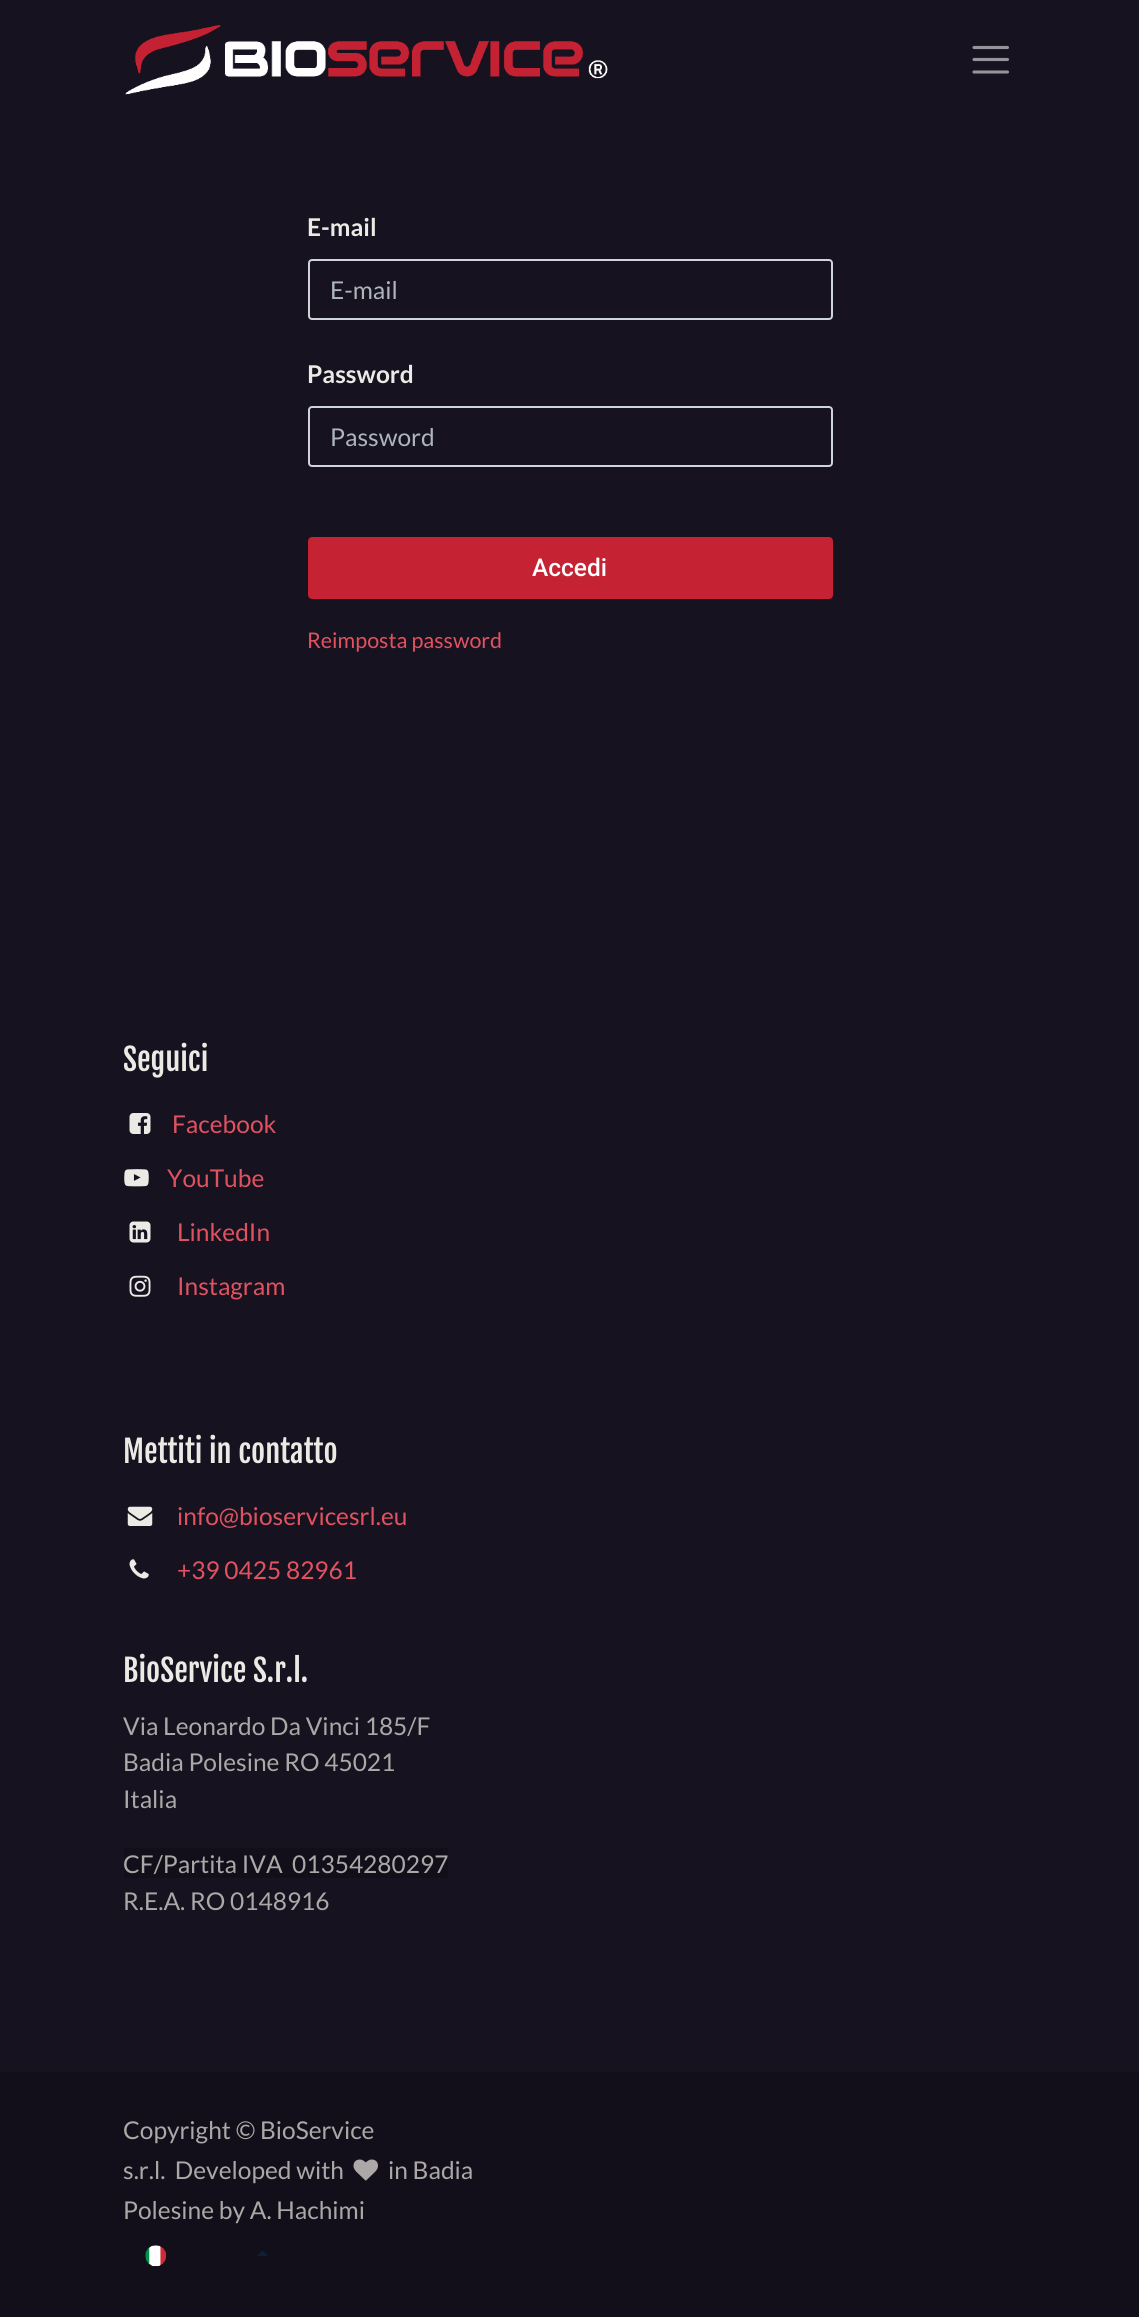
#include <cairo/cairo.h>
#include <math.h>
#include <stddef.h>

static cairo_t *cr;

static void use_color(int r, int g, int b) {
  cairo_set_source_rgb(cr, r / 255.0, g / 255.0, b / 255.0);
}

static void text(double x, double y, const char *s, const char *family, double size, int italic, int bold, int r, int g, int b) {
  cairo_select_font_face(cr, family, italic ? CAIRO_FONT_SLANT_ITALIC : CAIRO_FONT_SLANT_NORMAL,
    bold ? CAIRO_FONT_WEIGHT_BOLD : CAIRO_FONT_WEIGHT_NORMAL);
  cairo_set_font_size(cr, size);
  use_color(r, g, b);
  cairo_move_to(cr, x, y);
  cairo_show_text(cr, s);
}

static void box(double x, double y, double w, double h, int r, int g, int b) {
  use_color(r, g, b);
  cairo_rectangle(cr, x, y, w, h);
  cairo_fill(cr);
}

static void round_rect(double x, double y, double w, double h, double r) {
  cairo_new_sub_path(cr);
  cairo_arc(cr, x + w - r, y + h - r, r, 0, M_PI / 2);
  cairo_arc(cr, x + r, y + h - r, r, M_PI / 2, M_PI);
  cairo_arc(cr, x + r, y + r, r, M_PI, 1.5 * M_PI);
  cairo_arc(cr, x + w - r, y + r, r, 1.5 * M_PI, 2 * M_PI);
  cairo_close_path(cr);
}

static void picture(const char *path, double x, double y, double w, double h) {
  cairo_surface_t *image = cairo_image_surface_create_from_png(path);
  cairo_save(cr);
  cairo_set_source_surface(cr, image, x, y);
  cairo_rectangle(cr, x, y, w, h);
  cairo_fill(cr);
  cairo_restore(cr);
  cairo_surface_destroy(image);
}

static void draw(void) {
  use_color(22, 18, 31);
  cairo_paint(cr);
  picture("img_01.png", 125, 25, 483, 70);
  cairo_new_path(cr);
  cairo_move_to(cr, 974, 47.5);
  cairo_line_to(cr, 1007.5, 47.5);
  cairo_move_to(cr, 974, 59.5);
  cairo_line_to(cr, 1007.5, 59.5);
  cairo_move_to(cr, 974, 72);
  cairo_line_to(cr, 1007.5, 72);
  use_color(150, 148, 154);
  cairo_set_line_width(cr, 3.1);
  cairo_set_line_cap(cr, CAIRO_LINE_CAP_ROUND);
  cairo_stroke(cr);
  round_rect(309, 260, 523, 59, 3);
  use_color(206, 212, 218);
  cairo_set_line_width(cr, 2);
  cairo_set_line_cap(cr, CAIRO_LINE_CAP_BUTT);
  cairo_stroke(cr);
  round_rect(309, 407, 523, 59, 3);
  cairo_stroke(cr);
  use_color(197, 34, 51);
  round_rect(309, 538, 523, 60, 3);
  cairo_fill_preserve(cr);
  cairo_stroke(cr);
  picture("img_02.png", 129, 1113, 22, 21);
  picture("img_03.png", 124, 1169, 25, 18);
  picture("img_04.png", 129, 1221, 22, 22);
  picture("img_05.png", 129, 1275, 22, 22);
  picture("img_06.png", 127, 1506, 26, 20);
  picture("img_07.png", 129, 1559, 20, 20);
  box(124, 1848, 324, 30, 19, 15, 26);
  box(0, 2072, 1139, 245, 19, 15, 26);
  picture("img_08.png", 353, 2159, 25, 22);
  picture("img_09.png", 145, 2245, 22, 22);
  use_color(10, 34, 57);
  cairo_new_path(cr);
  cairo_move_to(cr, 268, 2256);
  cairo_line_to(cr, 257, 2256);
  cairo_line_to(cr, 262.5, 2250.5);
  cairo_close_path(cr);
  cairo_fill(cr);
  text(307, 236, "E-mail", "Lato", 24.5, 0, 1, 236, 234, 228);
  text(330, 299, "E-mail", "Lato", 24.5, 0, 0, 173, 181, 189);
  text(307, 383, "Password", "Lato", 24.5, 0, 1, 236, 234, 228);
  text(330, 446, "Password", "Lato", 24.5, 0, 0, 173, 181, 189);
  text(532, 576, "Accedi", "Roboto Medium", 24.5, 0, 0, 255, 255, 255);
  text(307, 648, "Reimposta password", "Lato", 21.5, 0, 0, 225, 82, 97);
  text(123, 1071, "Seguici", "Fjalla One", 30.5, 0, 0, 236, 234, 228);
  text(172, 1133, "Facebook", "Lato", 24.5, 0, 0, 225, 82, 97);
  text(167, 1187, "YouTube", "Lato", 24.5, 0, 0, 225, 82, 97);
  text(177, 1241, "LinkedIn", "Lato", 24.5, 0, 0, 225, 82, 97);
  text(177, 1295, "Instagram", "Lato", 24.5, 0, 0, 225, 82, 97);
  text(123, 1463, "Mettiti in contatto", "Fjalla One", 30.5, 0, 0, 236, 234, 228);
  text(177, 1525, "info@bioservicesrl.eu", "Lato", 24.5, 0, 0, 225, 82, 97);
  text(177, 1579, "+39 0425 82961", "Lato", 24.5, 0, 0, 225, 82, 97);
  text(123, 1682, "BioService S.r.l.", "Fjalla One", 30.5, 0, 0, 236, 234, 228);
  text(123, 1735, "Via Leonardo Da Vinci 185/F", "Lato", 24.5, 0, 0, 171, 168, 167);
  text(123, 1771, "Badia Polesine RO 45021", "Lato", 24.5, 0, 0, 171, 168, 167);
  text(123, 1808, "Italia", "Lato", 24.5, 0, 0, 171, 168, 167);
  text(123, 1873, "CF/Partita IVA  01354280297", "Lato", 24.5, 0, 0, 171, 168, 167);
  text(123, 1910, "R.E.A. RO 0148916", "Lato", 24.5, 0, 0, 171, 168, 167);
  text(123, 2139, "Copyright © BioService", "Lato", 24.5, 0, 0, 171, 168, 167);
  text(123, 2179, "s.r.l.  Developed with", "Lato", 24.5, 0, 0, 171, 168, 167);
  text(388, 2179, "in Badia", "Lato", 24.5, 0, 0, 171, 168, 167);
  text(123, 2219, "Polesine by A. Hachimi", "Lato", 24.5, 0, 0, 171, 168, 167);
}

int main(void) {
  cairo_surface_t *surface = cairo_image_surface_create(CAIRO_FORMAT_RGB24, 1139, 2317);
  cr = cairo_create(surface);
  cairo_font_options_t *options = cairo_font_options_create();
  cairo_font_options_set_hint_metrics(options, CAIRO_HINT_METRICS_OFF);
  cairo_font_options_set_hint_style(options, CAIRO_HINT_STYLE_NONE);
  cairo_set_font_options(cr, options);
  cairo_set_miter_limit(cr, 4);
  draw();
  cairo_surface_write_to_png(surface, "out.png");
  cairo_font_options_destroy(options);
  cairo_destroy(cr);
  cairo_surface_destroy(surface);
  return 0;
}
